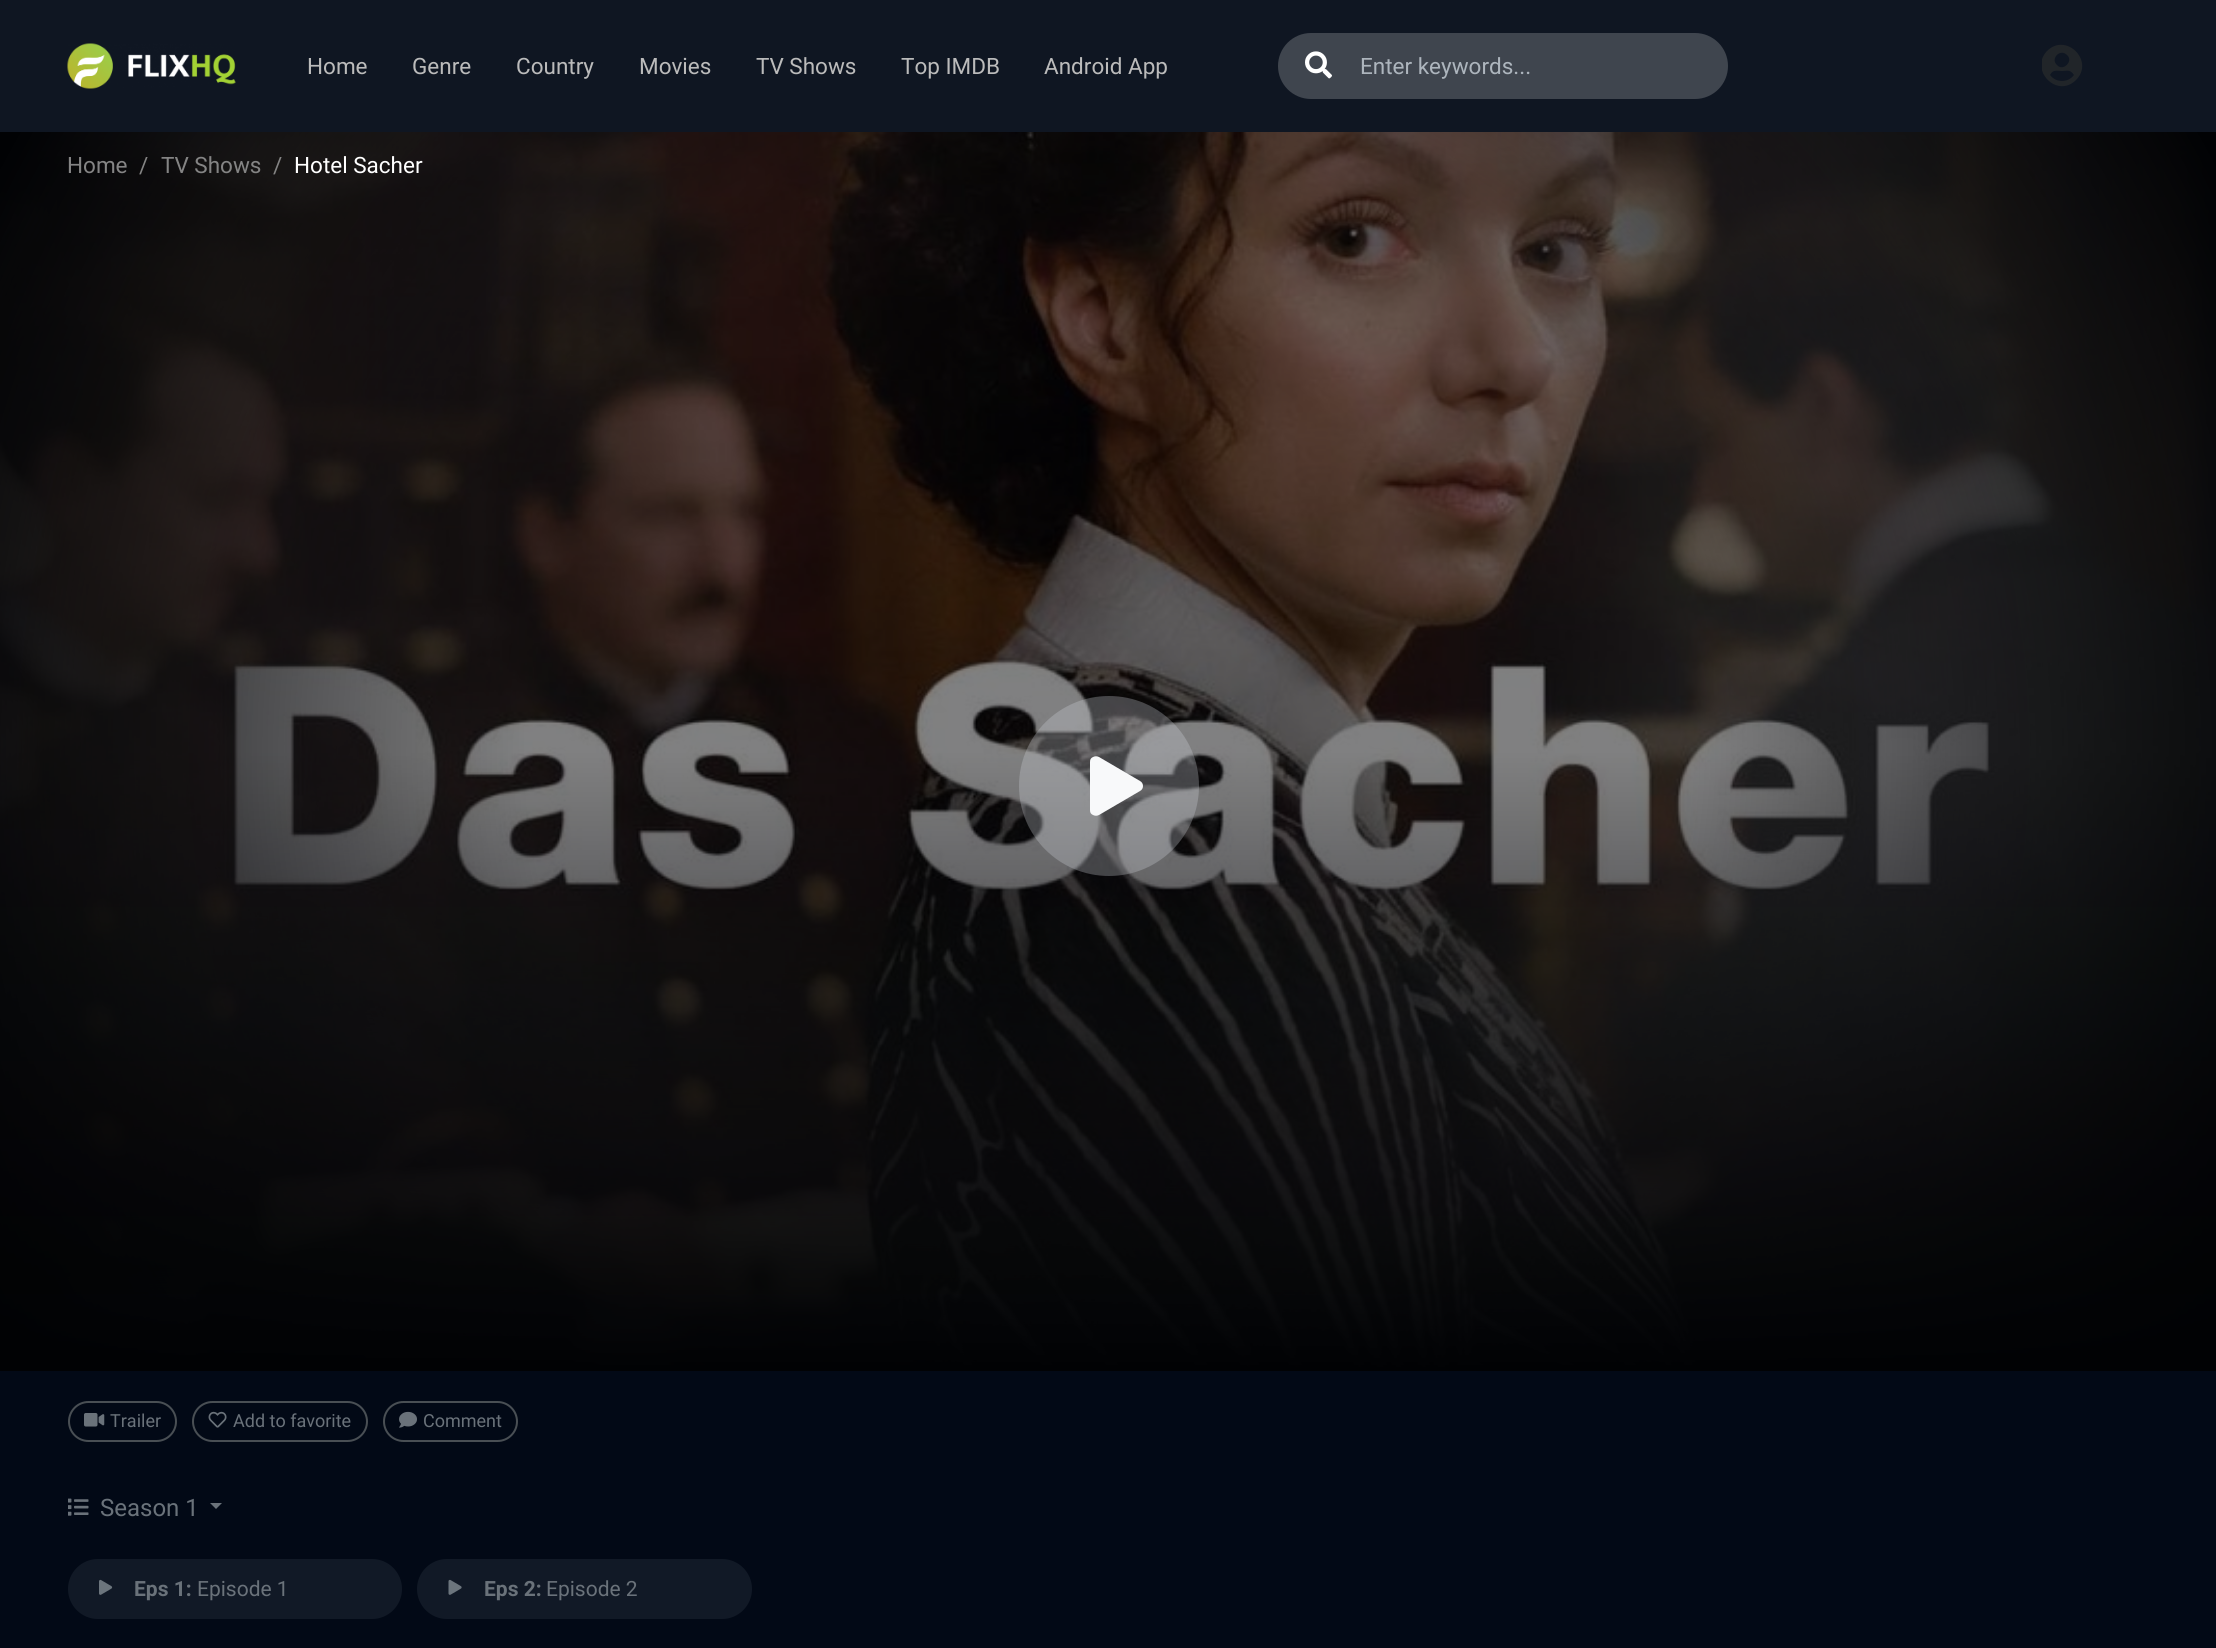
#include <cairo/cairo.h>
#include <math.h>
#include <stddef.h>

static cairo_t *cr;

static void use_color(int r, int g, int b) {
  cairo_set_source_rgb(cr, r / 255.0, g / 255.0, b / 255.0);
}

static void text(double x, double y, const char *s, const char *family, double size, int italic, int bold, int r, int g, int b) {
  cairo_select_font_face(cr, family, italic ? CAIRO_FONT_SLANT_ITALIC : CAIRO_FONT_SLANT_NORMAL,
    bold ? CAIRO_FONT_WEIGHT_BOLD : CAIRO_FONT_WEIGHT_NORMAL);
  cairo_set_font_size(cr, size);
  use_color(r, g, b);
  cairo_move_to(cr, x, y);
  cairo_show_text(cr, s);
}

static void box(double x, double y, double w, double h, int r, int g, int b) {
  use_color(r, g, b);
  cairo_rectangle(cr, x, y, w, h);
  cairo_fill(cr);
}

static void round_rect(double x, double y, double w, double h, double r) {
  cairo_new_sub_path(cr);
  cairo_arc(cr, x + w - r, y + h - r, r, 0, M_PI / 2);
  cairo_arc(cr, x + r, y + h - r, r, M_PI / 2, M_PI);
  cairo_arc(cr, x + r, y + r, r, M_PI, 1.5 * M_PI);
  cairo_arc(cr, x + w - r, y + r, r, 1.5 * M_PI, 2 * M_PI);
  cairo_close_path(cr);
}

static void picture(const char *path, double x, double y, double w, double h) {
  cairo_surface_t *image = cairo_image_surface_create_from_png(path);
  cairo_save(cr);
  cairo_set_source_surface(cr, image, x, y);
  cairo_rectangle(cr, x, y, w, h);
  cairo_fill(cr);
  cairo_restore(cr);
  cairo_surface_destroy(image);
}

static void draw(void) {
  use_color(2, 9, 22);
  cairo_paint(cr);
  box(0, 0, 2216, 132, 15, 22, 34);
  picture("img_01.png", 67, 43, 169, 46);
  use_color(63, 69, 78);
  round_rect(1278, 33, 450, 66, 33);
  cairo_fill(cr);
  picture("img_02.png", 1305, 51, 27, 28);
  cairo_save(cr);
  cairo_rectangle(cr, 2042, 39, 115, 54);
  cairo_clip(cr);
  use_color(33, 37, 41);
  cairo_new_path(cr);
  cairo_move_to(cr, 2047, 51);
  cairo_curve_to(cr, 2066, 32, 2095, 61, 2076, 80);
  cairo_curve_to(cr, 2057, 99, 2029, 70, 2047, 51);
  cairo_close_path(cr);
  cairo_move_to(cr, 2067, 55);
  cairo_curve_to(cr, 2060, 48, 2050, 59, 2057, 65);
  cairo_curve_to(cr, 2063, 72, 2074, 61, 2067, 55);
  cairo_close_path(cr);
  cairo_move_to(cr, 2050, 75);
  cairo_curve_to(cr, 2056, 83, 2068, 83, 2074, 75);
  cairo_curve_to(cr, 2070, 69, 2067, 71, 2062, 71);
  cairo_curve_to(cr, 2057, 71, 2053, 69, 2050, 75);
  cairo_close_path(cr);
  cairo_fill(cr);
  cairo_restore(cr);
  picture("img_03.png", 0, 132, 2216, 1239);
  cairo_set_source_rgba(cr, 0.808, 0.831, 0.855, 0.3);
  cairo_arc(cr, 1109, 786, 90, 0, 2 * M_PI);
  cairo_fill(cr);
  use_color(248, 249, 250);
  cairo_new_path(cr);
  cairo_move_to(cr, 1140, 781);
  cairo_curve_to(cr, 1142, 782, 1143, 784, 1143, 786);
  cairo_curve_to(cr, 1143, 788, 1142, 790, 1140, 791);
  cairo_line_to(cr, 1099, 815);
  cairo_curve_to(cr, 1097, 816, 1095, 816, 1093, 815);
  cairo_curve_to(cr, 1091, 814, 1090, 813, 1090, 810);
  cairo_line_to(cr, 1090, 762);
  cairo_curve_to(cr, 1090, 759, 1091, 758, 1093, 757);
  cairo_curve_to(cr, 1095, 756, 1097, 756, 1099, 757);
  cairo_close_path(cr);
  cairo_fill(cr);
  round_rect(69, 1402, 107, 39, 19.5);
  use_color(73, 79, 84);
  cairo_stroke(cr);
  picture("img_04.png", 84, 1413, 21, 14);
  round_rect(193, 1402, 174, 39, 19.5);
  cairo_stroke(cr);
  picture("img_05.png", 208, 1411, 19, 17);
  round_rect(384, 1402, 133, 39, 19.5);
  cairo_stroke(cr);
  picture("img_06.png", 399, 1411, 18, 17);
  picture("img_07.png", 68, 1498, 21, 18);
  use_color(106, 114, 122);
  cairo_new_path(cr);
  cairo_move_to(cr, 210, 1503);
  cairo_line_to(cr, 222, 1503);
  cairo_line_to(cr, 216, 1509);
  cairo_close_path(cr);
  cairo_fill(cr);
  use_color(17, 25, 38);
  round_rect(69, 1560, 332, 58, 29);
  cairo_fill_preserve(cr);
  cairo_stroke(cr);
  picture("img_08.png", 99, 1579, 14, 16);
  round_rect(418, 1560, 333, 58, 29);
  cairo_fill_preserve(cr);
  cairo_stroke(cr);
  picture("img_09.png", 448, 1579, 14, 16);
  text(307, 74, "Home", "Roboto", 22.5, 0, 0, 187, 187, 187);
  text(412, 74, "Genre", "Roboto", 22.5, 0, 0, 187, 187, 187);
  text(516, 74, "Country", "Roboto", 22.5, 0, 0, 187, 187, 187);
  text(639, 74, "Movies", "Roboto", 22.5, 0, 0, 187, 187, 187);
  text(756, 74, "TV Shows", "Roboto", 22.5, 0, 0, 187, 187, 187);
  text(901, 74, "Top IMDB", "Roboto", 22.5, 0, 0, 187, 187, 187);
  text(1044, 74, "Android App", "Roboto", 22.5, 0, 0, 187, 187, 187);
  text(1360, 74, "Enter keywords...", "Roboto", 22.5, 0, 0, 173, 181, 189);
  text(67, 173, "Home", "Roboto", 22.5, 0, 0, 132, 132, 132);
  text(139, 173, "/", "Roboto", 22.5, 0, 0, 132, 132, 132);
  text(161, 173, "TV Shows", "Roboto", 22.5, 0, 0, 132, 132, 132);
  text(273, 173, "/", "Roboto", 22.5, 0, 0, 132, 132, 132);
  text(294, 173, "Hotel Sacher", "Roboto", 22.5, 0, 0, 255, 255, 255);
  text(110, 1427, "Trailer", "Roboto", 18, 0, 0, 106, 114, 122);
  text(233, 1427, "Add to favorite", "Roboto", 18, 0, 0, 106, 114, 122);
  text(423, 1427, "Comment", "Roboto", 18, 0, 0, 106, 114, 122);
  text(100, 1516, "Season 1", "Roboto", 24, 0, 0, 106, 114, 122);
  text(134, 1596, "Eps 1:", "Roboto", 21, 0, 1, 106, 114, 122);
  text(197, 1596, "Episode 1", "Roboto", 21, 0, 0, 106, 114, 122);
  text(484, 1596, "Eps 2:", "Roboto", 21, 0, 1, 106, 114, 122);
  text(546, 1596, "Episode 2", "Roboto", 21, 0, 0, 106, 114, 122);
}

int main(void) {
  cairo_surface_t *surface = cairo_image_surface_create(CAIRO_FORMAT_RGB24, 2216, 1648);
  cr = cairo_create(surface);
  cairo_font_options_t *options = cairo_font_options_create();
  cairo_font_options_set_hint_metrics(options, CAIRO_HINT_METRICS_OFF);
  cairo_font_options_set_hint_style(options, CAIRO_HINT_STYLE_NONE);
  cairo_set_font_options(cr, options);
  cairo_set_miter_limit(cr, 4);
  draw();
  cairo_surface_write_to_png(surface, "out.png");
  cairo_font_options_destroy(options);
  cairo_destroy(cr);
  cairo_surface_destroy(surface);
  return 0;
}
